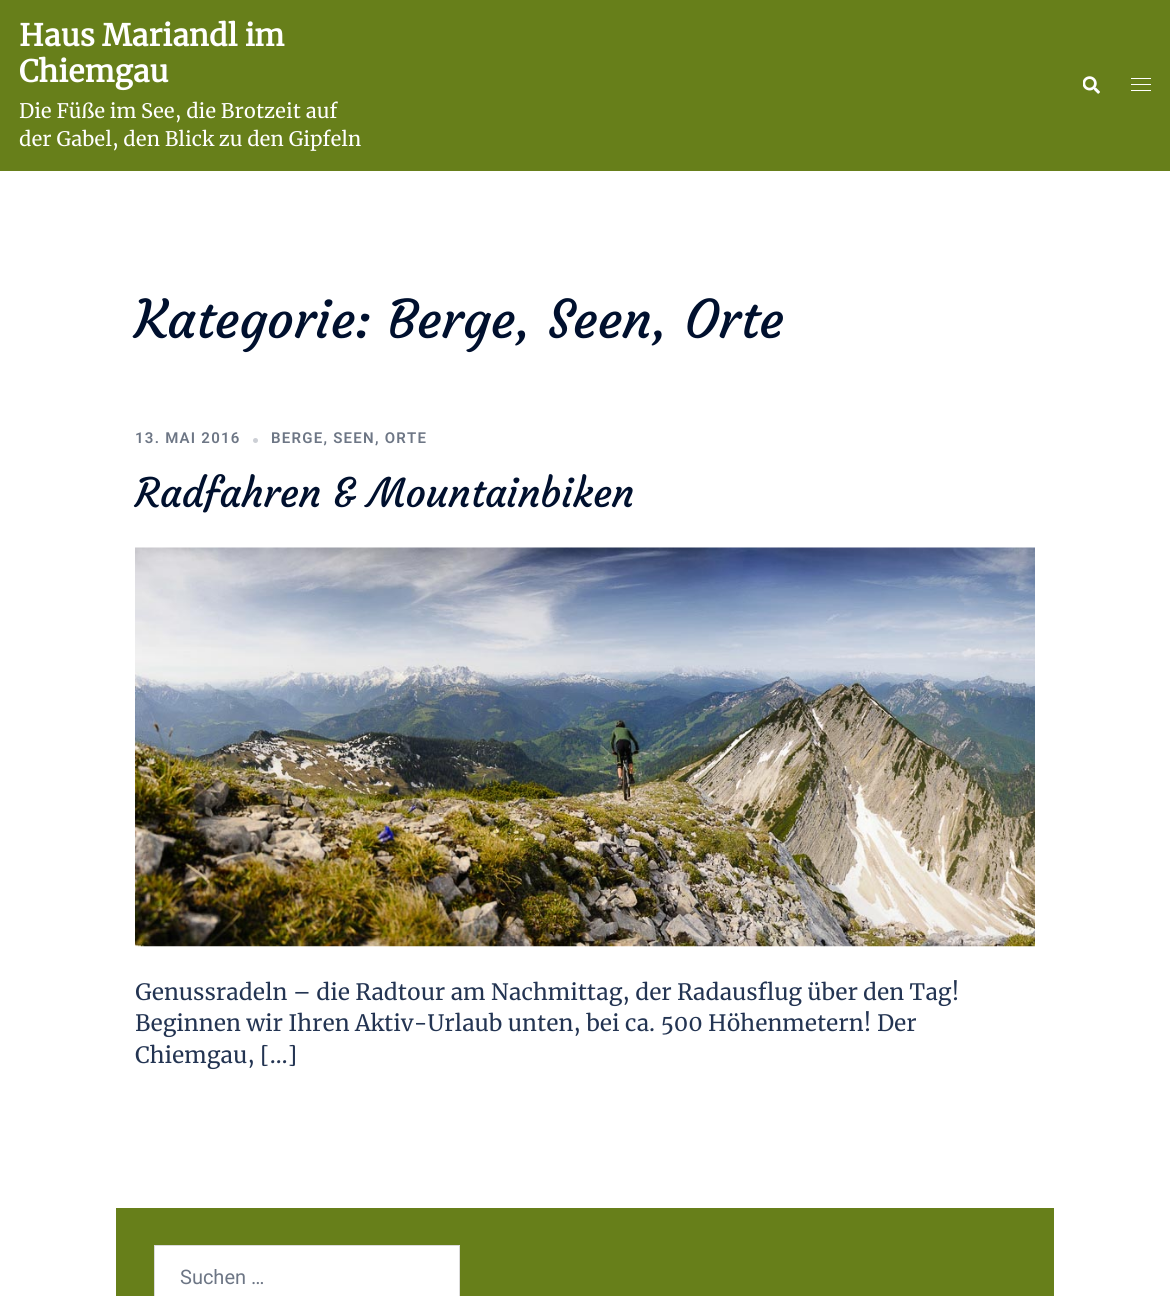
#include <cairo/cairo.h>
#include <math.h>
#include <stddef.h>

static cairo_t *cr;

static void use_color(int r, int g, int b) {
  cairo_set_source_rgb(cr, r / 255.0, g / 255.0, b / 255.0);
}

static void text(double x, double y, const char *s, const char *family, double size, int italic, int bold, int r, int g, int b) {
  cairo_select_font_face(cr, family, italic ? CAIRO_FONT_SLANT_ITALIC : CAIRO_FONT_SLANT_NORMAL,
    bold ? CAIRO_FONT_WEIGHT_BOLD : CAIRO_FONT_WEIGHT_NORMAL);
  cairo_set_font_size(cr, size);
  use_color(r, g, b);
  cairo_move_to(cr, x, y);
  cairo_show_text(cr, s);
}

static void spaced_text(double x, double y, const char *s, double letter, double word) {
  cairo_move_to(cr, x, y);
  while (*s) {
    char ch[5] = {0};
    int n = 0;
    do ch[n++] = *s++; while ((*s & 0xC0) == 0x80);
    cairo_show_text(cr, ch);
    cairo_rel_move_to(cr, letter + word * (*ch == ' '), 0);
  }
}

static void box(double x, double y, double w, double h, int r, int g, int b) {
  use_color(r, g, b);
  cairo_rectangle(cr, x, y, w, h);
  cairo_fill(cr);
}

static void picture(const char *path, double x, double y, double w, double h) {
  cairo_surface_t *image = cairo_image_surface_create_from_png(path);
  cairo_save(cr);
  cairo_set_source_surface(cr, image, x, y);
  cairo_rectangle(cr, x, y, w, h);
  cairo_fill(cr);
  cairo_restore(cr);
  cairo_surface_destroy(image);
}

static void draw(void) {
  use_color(255, 255, 255);
  cairo_paint(cr);
  box(0, 0, 1170, 171, 103, 127, 26);
  picture("img_01.png", 1083, 76, 17, 18);
  box(1131, 78, 20, 1, 255, 255, 255);
  box(1131, 84, 20, 1, 255, 255, 255);
  box(1131, 90, 20, 1, 255, 255, 255);
  use_color(204, 207, 213);
  cairo_arc(cr, 255.5, 440.5, 2.5, 0, 2 * M_PI);
  cairo_fill(cr);
  picture("img_02.png", 135, 547, 900, 400);
  box(116, 1208, 938, 88, 103, 127, 26);
  use_color(255, 255, 255);
  cairo_rectangle(cr, 154.5, 1245.5, 305, 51);
  cairo_fill_preserve(cr);
  use_color(219, 219, 219);
  cairo_set_line_width(cr, 1);
  cairo_stroke(cr);
  text(19, 46, "Haus Mariandl im", "Merriweather", 30, 0, 1, 255, 255, 255);
  text(19, 82, "Chiemgau", "Merriweather", 30, 0, 1, 255, 255, 255);
  text(19, 118, "Die Füße im See, die Brotzeit auf", "Merriweather", 20, 0, 0, 255, 255, 255);
  text(19, 146, "der Gabel, den Blick zu den Gipfeln", "Merriweather", 20, 0, 0, 255, 255, 255);
  text(135, 338, "Kategorie: Berge, Seen, Orte", "Courgette", 52.5, 0, 0, 0, 16, 46);
  cairo_select_font_face(cr, "Roboto SemiBold", CAIRO_FONT_SLANT_NORMAL, CAIRO_FONT_WEIGHT_NORMAL);
  cairo_set_font_size(cr, 15);
  use_color(109, 118, 133);
  spaced_text(135, 443, "13. MAI 2016", 1.25, 0);
  spaced_text(271, 443, "BERGE, SEEN, ORTE", 1.25, 0);
  text(135, 507, "Radfahren & Mountainbiken", "Courgette", 40, 0, 0, 0, 16, 46);
  text(135, 1000, "Genussradeln – die Radtour am Nachmittag, der Radausflug über den Tag!", "Merriweather", 22.5, 0, 0, 35, 52, 82);
  text(135, 1031, "Beginnen wir Ihren Aktiv-Urlaub unten, bei ca. 500 Höhenmetern! Der", "Merriweather", 22.5, 0, 0, 35, 52, 82);
  text(135, 1063, "Chiemgau, […]", "Merriweather", 22.5, 0, 0, 35, 52, 82);
  text(180, 1284, "Suchen …", "Roboto", 20, 0, 0, 109, 118, 133);
}

int main(void) {
  cairo_surface_t *surface = cairo_image_surface_create(CAIRO_FORMAT_RGB24, 1170, 1296);
  cr = cairo_create(surface);
  cairo_font_options_t *options = cairo_font_options_create();
  cairo_font_options_set_hint_metrics(options, CAIRO_HINT_METRICS_OFF);
  cairo_font_options_set_hint_style(options, CAIRO_HINT_STYLE_NONE);
  cairo_set_font_options(cr, options);
  cairo_set_miter_limit(cr, 4);
  draw();
  cairo_surface_write_to_png(surface, "out.png");
  cairo_font_options_destroy(options);
  cairo_destroy(cr);
  cairo_surface_destroy(surface);
  return 0;
}
